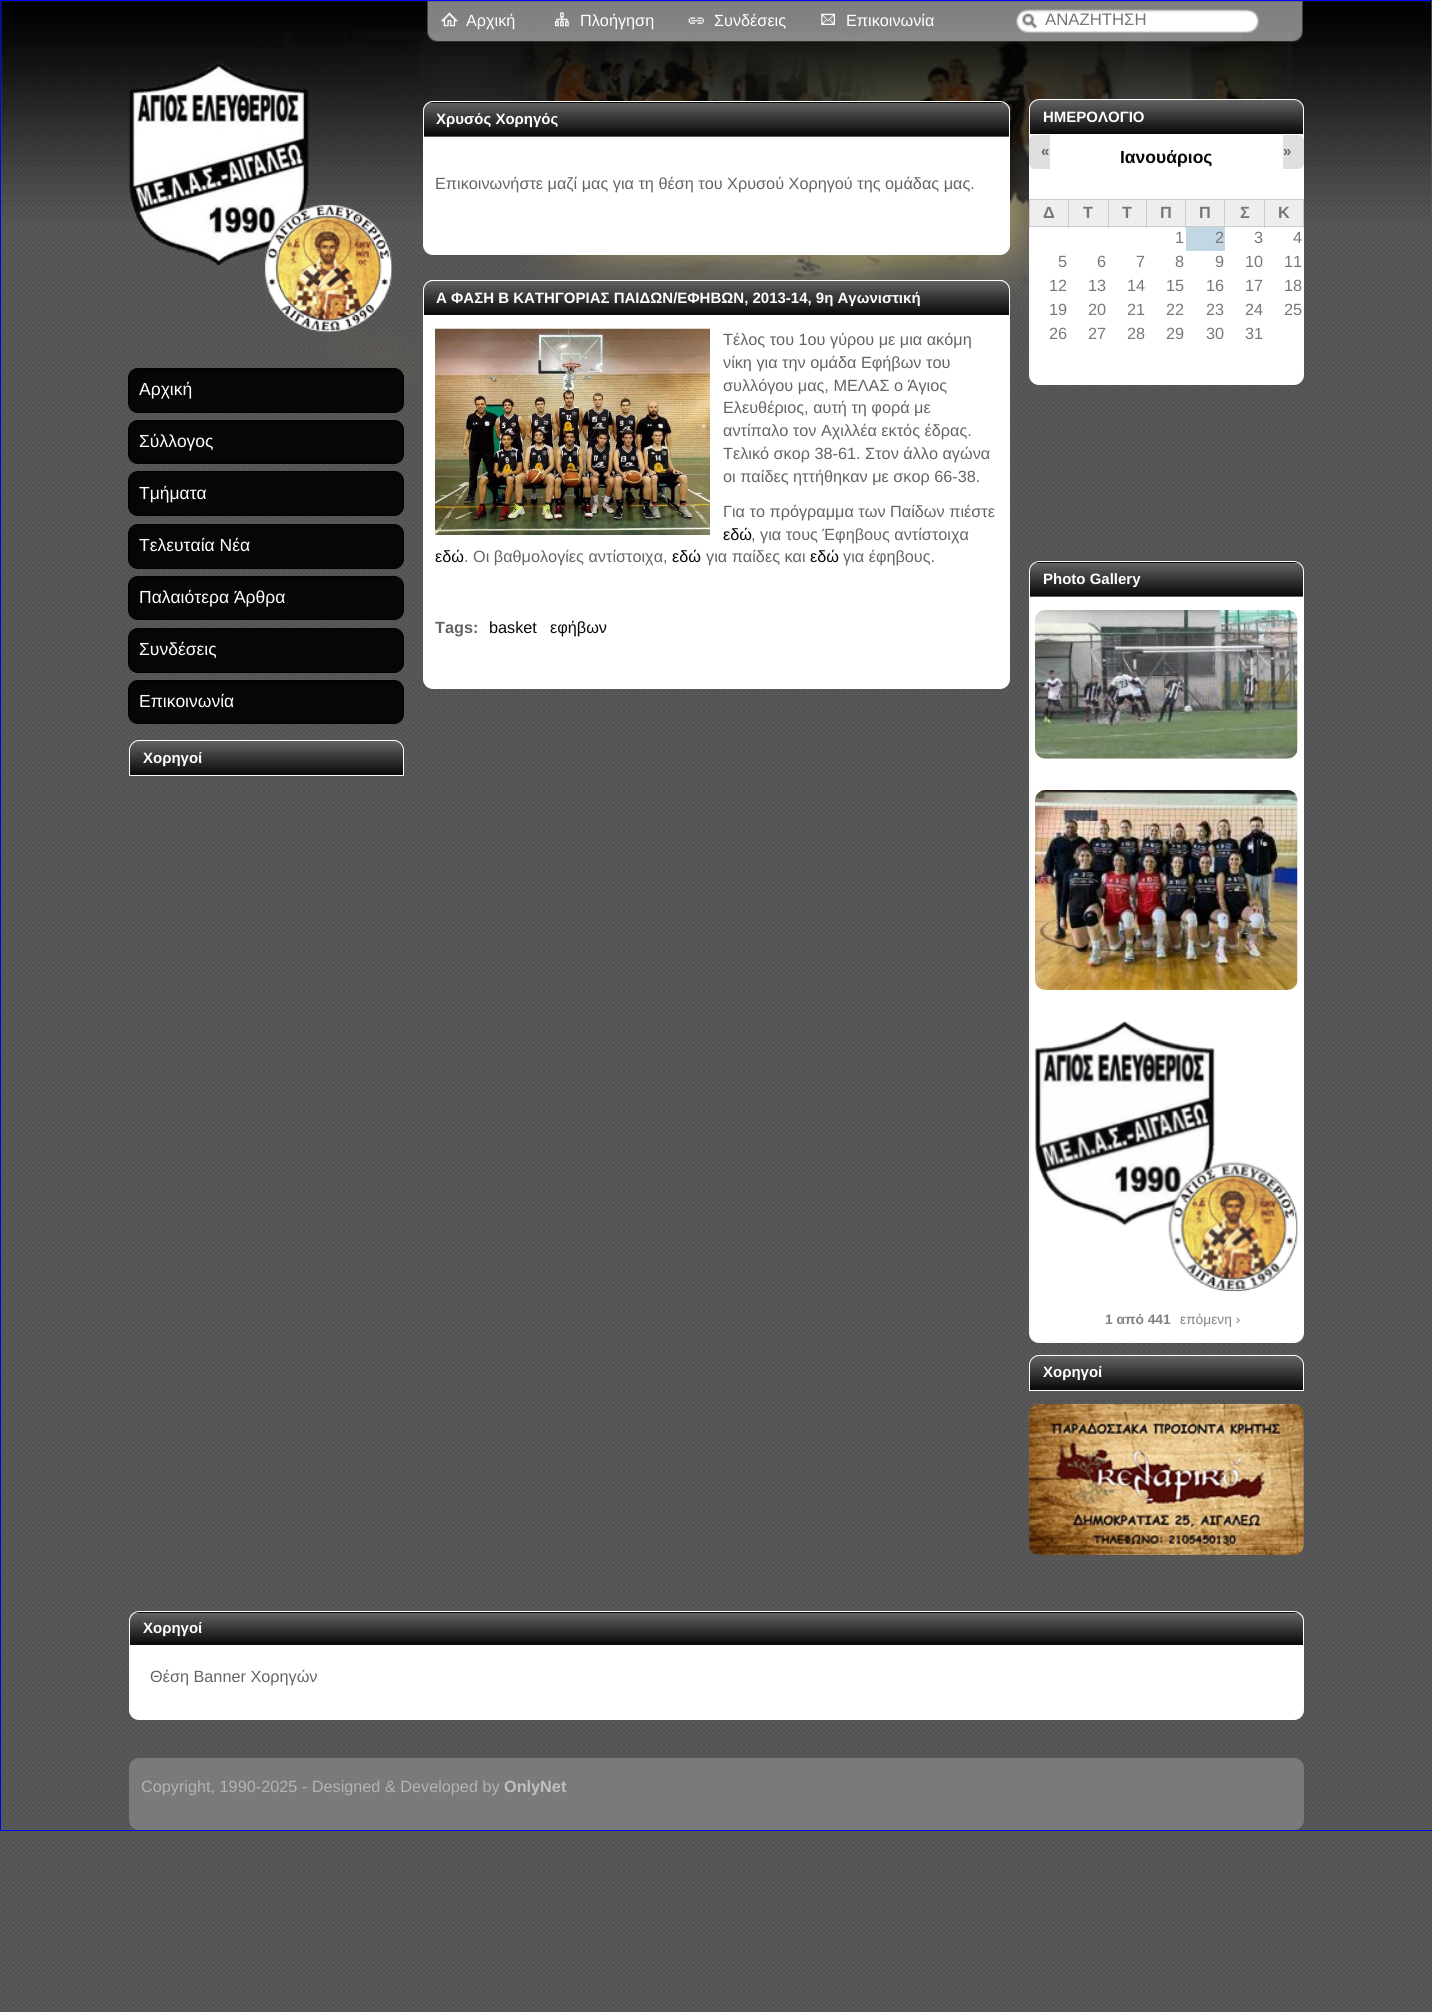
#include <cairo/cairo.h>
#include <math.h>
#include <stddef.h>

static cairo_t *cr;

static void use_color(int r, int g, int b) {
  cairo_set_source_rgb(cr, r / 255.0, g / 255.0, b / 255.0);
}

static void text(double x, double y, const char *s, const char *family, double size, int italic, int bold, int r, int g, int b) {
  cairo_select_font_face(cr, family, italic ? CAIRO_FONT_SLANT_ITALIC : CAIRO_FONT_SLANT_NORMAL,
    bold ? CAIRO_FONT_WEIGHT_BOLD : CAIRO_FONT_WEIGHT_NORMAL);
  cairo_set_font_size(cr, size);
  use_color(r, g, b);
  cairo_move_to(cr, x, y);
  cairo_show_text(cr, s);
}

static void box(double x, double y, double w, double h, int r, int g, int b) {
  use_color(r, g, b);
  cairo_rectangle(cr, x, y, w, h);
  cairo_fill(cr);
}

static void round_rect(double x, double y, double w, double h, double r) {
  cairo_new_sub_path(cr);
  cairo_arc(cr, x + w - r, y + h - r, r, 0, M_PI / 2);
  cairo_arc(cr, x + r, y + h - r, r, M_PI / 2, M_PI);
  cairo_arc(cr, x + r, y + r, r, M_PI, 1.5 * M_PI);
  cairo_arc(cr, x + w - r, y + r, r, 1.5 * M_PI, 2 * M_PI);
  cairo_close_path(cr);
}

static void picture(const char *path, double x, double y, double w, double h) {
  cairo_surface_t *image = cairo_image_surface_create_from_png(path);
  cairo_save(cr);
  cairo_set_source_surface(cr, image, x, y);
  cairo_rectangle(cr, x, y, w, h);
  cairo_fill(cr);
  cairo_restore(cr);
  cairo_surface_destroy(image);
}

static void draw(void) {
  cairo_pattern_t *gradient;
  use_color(255, 255, 255);
  cairo_paint(cr);
  picture("img_01.png", 0, 1, 1432, 2011);
  cairo_rectangle(cr, 0.5, 0.5, 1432, 1830);
  use_color(0, 0, 255);
  cairo_set_line_width(cr, 1);
  cairo_stroke(cr);
  picture("img_02.png", 1, 1, 1431, 221);
  picture("img_03.png", 427, 1, 876, 41);
  picture("img_04.png", 441, 12, 17, 15);
  picture("img_05.png", 555, 12, 14, 15);
  picture("img_06.png", 688, 17, 16, 7);
  picture("img_07.png", 821, 13, 14, 12);
  picture("img_08.png", 1016, 9, 243, 24);
  use_color(255, 255, 255);
  round_rect(423, 101, 587, 154, 10);
  cairo_fill(cr);
  cairo_save(cr);
  cairo_new_path(cr);
  cairo_move_to(cr, 433, 101);
  cairo_line_to(cr, 1000, 101);
  cairo_curve_to(cr, 1005.5, 101, 1010, 105.5, 1010, 111);
  cairo_line_to(cr, 1010, 138);
  cairo_line_to(cr, 423, 138);
  cairo_line_to(cr, 423, 111);
  cairo_curve_to(cr, 423, 105.5, 427.5, 101, 433, 101);
  cairo_close_path(cr);
  cairo_clip(cr);
  gradient = cairo_pattern_create_linear(716, 69, 716, 103);
  cairo_pattern_add_color_stop_rgba(gradient, 0, 0.388, 0.388, 0.388, 1);
  cairo_pattern_add_color_stop_rgba(gradient, 1, 0.027, 0.031, 0.031, 1);
  cairo_set_source(cr, gradient);
  cairo_pattern_destroy(gradient);
  cairo_rectangle(cr, 423, 101, 587, 2);
  cairo_fill(cr);
  gradient = cairo_pattern_create_linear(716, 102, 716, 136);
  cairo_pattern_add_color_stop_rgba(gradient, 0, 0.388, 0.388, 0.388, 1);
  cairo_pattern_add_color_stop_rgba(gradient, 1, 0.027, 0.031, 0.031, 1);
  cairo_set_source(cr, gradient);
  cairo_pattern_destroy(gradient);
  cairo_rectangle(cr, 423, 103, 587, 33);
  cairo_fill(cr);
  cairo_restore(cr);
  gradient = cairo_pattern_create_linear(716, 136, 716, 170);
  cairo_pattern_add_color_stop_rgba(gradient, 0, 0.388, 0.388, 0.388, 1);
  cairo_pattern_add_color_stop_rgba(gradient, 1, 0.027, 0.031, 0.031, 1);
  cairo_set_source(cr, gradient);
  cairo_pattern_destroy(gradient);
  cairo_rectangle(cr, 423, 136, 587, 1);
  cairo_fill(cr);
  cairo_new_path(cr);
  cairo_move_to(cr, 433, 101.5);
  cairo_line_to(cr, 1000, 101.5);
  cairo_curve_to(cr, 1005, 101.5, 1009.5, 106, 1009.5, 111);
  cairo_line_to(cr, 1009.5, 137.5);
  cairo_line_to(cr, 423.5, 137.5);
  cairo_line_to(cr, 423.5, 111);
  cairo_curve_to(cr, 423.5, 106, 428, 101.5, 433, 101.5);
  cairo_close_path(cr);
  use_color(255, 255, 255);
  cairo_stroke(cr);
  cairo_save(cr);
  cairo_new_path(cr);
  cairo_move_to(cr, 1039, 99);
  cairo_line_to(cr, 1294, 99);
  cairo_curve_to(cr, 1299.5, 99, 1304, 103.5, 1304, 109);
  cairo_line_to(cr, 1304, 135);
  cairo_line_to(cr, 1029, 135);
  cairo_line_to(cr, 1029, 109);
  cairo_curve_to(cr, 1029, 103.5, 1033.5, 99, 1039, 99);
  cairo_close_path(cr);
  cairo_clip(cr);
  gradient = cairo_pattern_create_linear(1166, 100, 1166, 134);
  cairo_pattern_add_color_stop_rgba(gradient, 0, 0.388, 0.388, 0.388, 1);
  cairo_pattern_add_color_stop_rgba(gradient, 1, 0.027, 0.031, 0.031, 1);
  cairo_set_source(cr, gradient);
  cairo_pattern_destroy(gradient);
  cairo_rectangle(cr, 1029, 100, 275, 34);
  cairo_fill(cr);
  cairo_restore(cr);
  cairo_new_path(cr);
  cairo_move_to(cr, 1039, 99.5);
  cairo_line_to(cr, 1294, 99.5);
  cairo_curve_to(cr, 1299, 99.5, 1303.5, 104, 1303.5, 109);
  cairo_line_to(cr, 1303.5, 134.5);
  cairo_line_to(cr, 1029.5, 134.5);
  cairo_line_to(cr, 1029.5, 109);
  cairo_curve_to(cr, 1029.5, 104, 1034, 99.5, 1039, 99.5);
  cairo_close_path(cr);
  cairo_stroke(cr);
  cairo_new_path(cr);
  cairo_move_to(cr, 1029, 135);
  cairo_line_to(cr, 1304, 135);
  cairo_line_to(cr, 1304, 375);
  cairo_curve_to(cr, 1304, 380.5, 1299.5, 385, 1294, 385);
  cairo_line_to(cr, 1039, 385);
  cairo_curve_to(cr, 1033.5, 385, 1029, 380.5, 1029, 375);
  cairo_close_path(cr);
  cairo_fill(cr);
  use_color(223, 223, 223);
  cairo_new_path(cr);
  cairo_move_to(cr, 1035, 135);
  cairo_line_to(cr, 1050, 135);
  cairo_line_to(cr, 1050, 169);
  cairo_line_to(cr, 1035, 169);
  cairo_curve_to(cr, 1031.5, 169, 1029, 166.5, 1029, 163);
  cairo_line_to(cr, 1029, 141);
  cairo_curve_to(cr, 1029, 137.5, 1031.5, 135, 1035, 135);
  cairo_close_path(cr);
  cairo_fill(cr);
  cairo_new_path(cr);
  cairo_move_to(cr, 1283, 135);
  cairo_line_to(cr, 1298, 135);
  cairo_curve_to(cr, 1301.5, 135, 1304, 137.5, 1304, 141);
  cairo_line_to(cr, 1304, 163);
  cairo_curve_to(cr, 1304, 166.5, 1301.5, 169, 1298, 169);
  cairo_line_to(cr, 1283, 169);
  cairo_close_path(cr);
  cairo_fill(cr);
  box(1030, 200, 38, 26, 238, 238, 238);
  box(1264, 199, 40, 1, 204, 204, 204);
  box(1303, 199, 1, 29, 204, 204, 204);
  box(1264, 226, 40, 1, 204, 204, 204);
  box(1264, 199, 1, 29, 204, 204, 204);
  box(1224, 199, 41, 1, 204, 204, 204);
  box(1224, 226, 41, 1, 204, 204, 204);
  box(1186, 227, 39, 24, 195, 214, 228);
  box(1224, 199, 1, 29, 204, 204, 204);
  box(1185, 199, 40, 1, 204, 204, 204);
  box(1185, 226, 40, 1, 204, 204, 204);
  box(1185, 199, 1, 29, 204, 204, 204);
  box(1146, 199, 40, 1, 204, 204, 204);
  box(1146, 226, 40, 1, 204, 204, 204);
  box(1146, 199, 1, 29, 204, 204, 204);
  box(1108, 199, 40, 1, 204, 204, 204);
  box(1108, 226, 40, 1, 204, 204, 204);
  box(1108, 199, 1, 29, 204, 204, 204);
  box(1068, 199, 41, 1, 204, 204, 204);
  box(1068, 226, 41, 1, 204, 204, 204);
  box(1068, 199, 1, 29, 204, 204, 204);
  box(1029, 199, 40, 1, 204, 204, 204);
  box(1029, 226, 40, 1, 204, 204, 204);
  box(1029, 199, 1, 29, 204, 204, 204);
  box(1069, 200, 39, 26, 238, 238, 238);
  box(1109, 200, 37, 26, 238, 238, 238);
  box(1147, 200, 38, 26, 238, 238, 238);
  box(1186, 200, 38, 26, 238, 238, 238);
  box(1225, 200, 39, 26, 238, 238, 238);
  box(1265, 200, 38, 26, 238, 238, 238);
  cairo_save(cr);
  cairo_new_path(cr);
  cairo_move_to(cr, 1039, 561);
  cairo_line_to(cr, 1294, 561);
  cairo_curve_to(cr, 1299.5, 561, 1304, 565.5, 1304, 571);
  cairo_line_to(cr, 1304, 598);
  cairo_line_to(cr, 1029, 598);
  cairo_line_to(cr, 1029, 571);
  cairo_curve_to(cr, 1029, 565.5, 1033.5, 561, 1039, 561);
  cairo_close_path(cr);
  cairo_clip(cr);
  gradient = cairo_pattern_create_linear(1166, 529, 1166, 563);
  cairo_pattern_add_color_stop_rgba(gradient, 0, 0.388, 0.388, 0.388, 1);
  cairo_pattern_add_color_stop_rgba(gradient, 1, 0.027, 0.031, 0.031, 1);
  cairo_set_source(cr, gradient);
  cairo_pattern_destroy(gradient);
  cairo_rectangle(cr, 1029, 561, 275, 2);
  cairo_fill(cr);
  gradient = cairo_pattern_create_linear(1166, 563, 1166, 596);
  cairo_pattern_add_color_stop_rgba(gradient, 0, 0.388, 0.388, 0.388, 1);
  cairo_pattern_add_color_stop_rgba(gradient, 1, 0.027, 0.031, 0.031, 1);
  cairo_set_source(cr, gradient);
  cairo_pattern_destroy(gradient);
  cairo_rectangle(cr, 1029, 563, 275, 33);
  cairo_fill(cr);
  cairo_restore(cr);
  gradient = cairo_pattern_create_linear(1166, 596, 1166, 630);
  cairo_pattern_add_color_stop_rgba(gradient, 0, 0.388, 0.388, 0.388, 1);
  cairo_pattern_add_color_stop_rgba(gradient, 1, 0.027, 0.031, 0.031, 1);
  cairo_set_source(cr, gradient);
  cairo_pattern_destroy(gradient);
  cairo_rectangle(cr, 1029, 596, 275, 1);
  cairo_fill(cr);
  cairo_new_path(cr);
  cairo_move_to(cr, 1039, 561.5);
  cairo_line_to(cr, 1294, 561.5);
  cairo_curve_to(cr, 1299, 561.5, 1303.5, 566, 1303.5, 571);
  cairo_line_to(cr, 1303.5, 597.5);
  cairo_line_to(cr, 1029.5, 597.5);
  cairo_line_to(cr, 1029.5, 571);
  cairo_curve_to(cr, 1029.5, 566, 1034, 561.5, 1039, 561.5);
  cairo_close_path(cr);
  use_color(255, 255, 255);
  cairo_stroke(cr);
  cairo_new_path(cr);
  cairo_move_to(cr, 1029, 598);
  cairo_line_to(cr, 1304, 598);
  cairo_line_to(cr, 1304, 1333);
  cairo_curve_to(cr, 1304, 1338.5, 1299.5, 1343, 1294, 1343);
  cairo_line_to(cr, 1039, 1343);
  cairo_curve_to(cr, 1033.5, 1343, 1029, 1338.5, 1029, 1333);
  cairo_close_path(cr);
  cairo_fill(cr);
  picture("img_09.png", 1035, 610, 263, 149);
  picture("img_10.png", 1035, 790, 263, 200);
  picture("img_11.png", 1035, 1021, 263, 271);
  cairo_save(cr);
  cairo_new_path(cr);
  cairo_move_to(cr, 1039, 1355);
  cairo_line_to(cr, 1294, 1355);
  cairo_curve_to(cr, 1299.5, 1355, 1304, 1359.5, 1304, 1365);
  cairo_line_to(cr, 1304, 1391);
  cairo_line_to(cr, 1029, 1391);
  cairo_line_to(cr, 1029, 1365);
  cairo_curve_to(cr, 1029, 1359.5, 1033.5, 1355, 1039, 1355);
  cairo_close_path(cr);
  cairo_clip(cr);
  gradient = cairo_pattern_create_linear(1166, 1356, 1166, 1390);
  cairo_pattern_add_color_stop_rgba(gradient, 0, 0.388, 0.388, 0.388, 1);
  cairo_pattern_add_color_stop_rgba(gradient, 1, 0.027, 0.031, 0.031, 1);
  cairo_set_source(cr, gradient);
  cairo_pattern_destroy(gradient);
  cairo_rectangle(cr, 1029, 1356, 275, 34);
  cairo_fill(cr);
  cairo_restore(cr);
  cairo_new_path(cr);
  cairo_move_to(cr, 1039, 1355.5);
  cairo_line_to(cr, 1294, 1355.5);
  cairo_curve_to(cr, 1299, 1355.5, 1303.5, 1360, 1303.5, 1365);
  cairo_line_to(cr, 1303.5, 1390.5);
  cairo_line_to(cr, 1029.5, 1390.5);
  cairo_line_to(cr, 1029.5, 1365);
  cairo_curve_to(cr, 1029.5, 1360, 1034, 1355.5, 1039, 1355.5);
  cairo_close_path(cr);
  cairo_stroke(cr);
  picture("img_12.png", 1028, 1403, 276, 152);
  picture("img_13.png", 129, 61, 264, 272);
  use_color(6, 6, 6);
  round_rect(128.5, 368.5, 275, 44, 9.5);
  cairo_fill_preserve(cr);
  use_color(0, 0, 0);
  cairo_stroke(cr);
  use_color(6, 6, 6);
  round_rect(128.5, 420.5, 275, 43, 9.5);
  cairo_fill_preserve(cr);
  use_color(0, 0, 0);
  cairo_stroke(cr);
  use_color(6, 6, 6);
  round_rect(128.5, 471.5, 275, 44, 9.5);
  cairo_fill_preserve(cr);
  use_color(0, 0, 0);
  cairo_stroke(cr);
  use_color(6, 6, 6);
  round_rect(128.5, 524.5, 275, 44, 9.5);
  cairo_fill_preserve(cr);
  use_color(0, 0, 0);
  cairo_stroke(cr);
  use_color(6, 6, 6);
  round_rect(128.5, 576.5, 275, 43, 9.5);
  cairo_fill_preserve(cr);
  use_color(0, 0, 0);
  cairo_stroke(cr);
  use_color(6, 6, 6);
  round_rect(128.5, 628.5, 275, 44, 9.5);
  cairo_fill_preserve(cr);
  use_color(0, 0, 0);
  cairo_stroke(cr);
  use_color(6, 6, 6);
  round_rect(128.5, 680.5, 275, 43, 9.5);
  cairo_fill_preserve(cr);
  use_color(0, 0, 0);
  cairo_stroke(cr);
  cairo_save(cr);
  cairo_new_path(cr);
  cairo_move_to(cr, 139, 740);
  cairo_line_to(cr, 394, 740);
  cairo_curve_to(cr, 399.5, 740, 404, 744.5, 404, 750);
  cairo_line_to(cr, 404, 776);
  cairo_line_to(cr, 129, 776);
  cairo_line_to(cr, 129, 750);
  cairo_curve_to(cr, 129, 744.5, 133.5, 740, 139, 740);
  cairo_close_path(cr);
  cairo_clip(cr);
  gradient = cairo_pattern_create_linear(266, 741, 266, 775);
  cairo_pattern_add_color_stop_rgba(gradient, 0, 0.388, 0.388, 0.388, 1);
  cairo_pattern_add_color_stop_rgba(gradient, 1, 0.027, 0.031, 0.031, 1);
  cairo_set_source(cr, gradient);
  cairo_pattern_destroy(gradient);
  cairo_rectangle(cr, 129, 741, 275, 34);
  cairo_fill(cr);
  cairo_restore(cr);
  cairo_new_path(cr);
  cairo_move_to(cr, 139, 740.5);
  cairo_line_to(cr, 394, 740.5);
  cairo_curve_to(cr, 399, 740.5, 403.5, 745, 403.5, 750);
  cairo_line_to(cr, 403.5, 775.5);
  cairo_line_to(cr, 129.5, 775.5);
  cairo_line_to(cr, 129.5, 750);
  cairo_curve_to(cr, 129.5, 745, 134, 740.5, 139, 740.5);
  cairo_close_path(cr);
  use_color(255, 255, 255);
  cairo_stroke(cr);
  round_rect(423, 280, 587, 409, 10);
  cairo_fill(cr);
  cairo_save(cr);
  cairo_new_path(cr);
  cairo_move_to(cr, 433, 280);
  cairo_line_to(cr, 1000, 280);
  cairo_curve_to(cr, 1005.5, 280, 1010, 284.5, 1010, 290);
  cairo_line_to(cr, 1010, 316);
  cairo_line_to(cr, 423, 316);
  cairo_line_to(cr, 423, 290);
  cairo_curve_to(cr, 423, 284.5, 427.5, 280, 433, 280);
  cairo_close_path(cr);
  cairo_clip(cr);
  gradient = cairo_pattern_create_linear(716, 281, 716, 315);
  cairo_pattern_add_color_stop_rgba(gradient, 0, 0.388, 0.388, 0.388, 1);
  cairo_pattern_add_color_stop_rgba(gradient, 1, 0.027, 0.031, 0.031, 1);
  cairo_set_source(cr, gradient);
  cairo_pattern_destroy(gradient);
  cairo_rectangle(cr, 423, 281, 587, 34);
  cairo_fill(cr);
  cairo_restore(cr);
  cairo_new_path(cr);
  cairo_move_to(cr, 433, 280.5);
  cairo_line_to(cr, 1000, 280.5);
  cairo_curve_to(cr, 1005, 280.5, 1009.5, 285, 1009.5, 290);
  cairo_line_to(cr, 1009.5, 315.5);
  cairo_line_to(cr, 423.5, 315.5);
  cairo_line_to(cr, 423.5, 290);
  cairo_curve_to(cr, 423.5, 285, 428, 280.5, 433, 280.5);
  cairo_close_path(cr);
  cairo_stroke(cr);
  picture("img_14.png", 435, 328, 275, 207);
  round_rect(129, 1611, 1175, 109, 10);
  cairo_fill(cr);
  cairo_save(cr);
  cairo_new_path(cr);
  cairo_move_to(cr, 139, 1611);
  cairo_line_to(cr, 1294, 1611);
  cairo_curve_to(cr, 1299.5, 1611, 1304, 1615.5, 1304, 1621);
  cairo_line_to(cr, 1304, 1646);
  cairo_line_to(cr, 129, 1646);
  cairo_line_to(cr, 129, 1621);
  cairo_curve_to(cr, 129, 1615.5, 133.5, 1611, 139, 1611);
  cairo_close_path(cr);
  cairo_clip(cr);
  gradient = cairo_pattern_create_linear(716, 1580, 716, 1613);
  cairo_pattern_add_color_stop_rgba(gradient, 0, 0.388, 0.388, 0.388, 1);
  cairo_pattern_add_color_stop_rgba(gradient, 1, 0.027, 0.031, 0.031, 1);
  cairo_set_source(cr, gradient);
  cairo_pattern_destroy(gradient);
  cairo_rectangle(cr, 129, 1611, 1175, 2);
  cairo_fill(cr);
  gradient = cairo_pattern_create_linear(716, 1613, 716, 1645);
  cairo_pattern_add_color_stop_rgba(gradient, 0, 0.388, 0.388, 0.388, 1);
  cairo_pattern_add_color_stop_rgba(gradient, 1, 0.027, 0.031, 0.031, 1);
  cairo_set_source(cr, gradient);
  cairo_pattern_destroy(gradient);
  cairo_rectangle(cr, 129, 1613, 1175, 32);
  cairo_fill(cr);
  cairo_restore(cr);
  cairo_new_path(cr);
  cairo_move_to(cr, 139, 1611.5);
  cairo_line_to(cr, 1294, 1611.5);
  cairo_curve_to(cr, 1299, 1611.5, 1303.5, 1616, 1303.5, 1621);
  cairo_line_to(cr, 1303.5, 1645.5);
  cairo_line_to(cr, 129.5, 1645.5);
  cairo_line_to(cr, 129.5, 1621);
  cairo_curve_to(cr, 129.5, 1616, 134, 1611.5, 139, 1611.5);
  cairo_close_path(cr);
  cairo_stroke(cr);
  cairo_set_source_rgba(cr, 0.514, 0.514, 0.514, 0.8);
  round_rect(129, 1758, 1175, 72, 10);
  cairo_fill(cr);
  text(466, 26, "Αρχική", "Liberation Sans", 16.25, 0, 0, 255, 255, 255);
  text(580, 26, "Πλοήγηση", "Liberation Sans", 16.25, 0, 0, 255, 255, 255);
  text(714, 26, "Συνδέσεις", "Liberation Sans", 16.25, 0, 0, 255, 255, 255);
  text(846, 26, "Επικοινωνία", "Liberation Sans", 16.25, 0, 0, 255, 255, 255);
  text(1045, 25, "ΑΝΑΖΗΤΗΣΗ", "Liberation Sans", 16.75, 0, 0, 119, 119, 119);
  text(436, 124, "Χρυσός Χορηγός", "Liberation Sans", 15, 0, 1, 255, 255, 255);
  text(435, 189, "Επικοινωνήστε μαζί μας για τη θέση του Χρυσού Χορηγού της ομάδας μας.", "Liberation Sans", 16.25, 0, 0, 99, 100, 102);
  text(1043, 122, "ΗΜΕΡΟΛΟΓΙΟ", "Liberation Sans", 15, 0, 1, 255, 255, 255);
  text(1041, 156, "«", "Liberation Sans", 15, 0, 1, 99, 100, 102);
  text(1283, 156, "»", "Liberation Sans", 15, 0, 1, 99, 100, 102);
  text(1120, 163, "Ιανουάριος", "Liberation Sans", 17.5, 0, 1, 6, 6, 6);
  text(1043, 218, "Δ", "Liberation Sans", 16.25, 0, 1, 119, 119, 119);
  text(1083, 218, "Τ", "Liberation Sans", 16.25, 0, 1, 119, 119, 119);
  text(1122, 218, "Τ", "Liberation Sans", 16.25, 0, 1, 119, 119, 119);
  text(1160, 218, "Π", "Liberation Sans", 16.25, 0, 1, 119, 119, 119);
  text(1199, 218, "Π", "Liberation Sans", 16.25, 0, 1, 119, 119, 119);
  text(1240, 218, "Σ", "Liberation Sans", 16.25, 0, 1, 119, 119, 119);
  text(1278, 218, "Κ", "Liberation Sans", 16.25, 0, 1, 119, 119, 119);
  text(1175, 243, "1", "Liberation Sans", 16.25, 0, 0, 119, 119, 119);
  text(1215, 243, "2", "Liberation Sans", 16.25, 0, 0, 119, 119, 119);
  text(1254, 243, "3", "Liberation Sans", 16.25, 0, 0, 119, 119, 119);
  text(1293, 243, "4", "Liberation Sans", 16.25, 0, 0, 119, 119, 119);
  text(1058, 267, "5", "Liberation Sans", 16.25, 0, 0, 119, 119, 119);
  text(1097, 267, "6", "Liberation Sans", 16.25, 0, 0, 119, 119, 119);
  text(1136, 267, "7", "Liberation Sans", 16.25, 0, 0, 119, 119, 119);
  text(1175, 267, "8", "Liberation Sans", 16.25, 0, 0, 119, 119, 119);
  text(1215, 267, "9", "Liberation Sans", 16.25, 0, 0, 119, 119, 119);
  text(1245, 267, "10", "Liberation Sans", 16.25, 0, 0, 119, 119, 119);
  text(1284, 267, "11", "Liberation Sans", 16.25, 0, 0, 119, 119, 119);
  text(1049, 291, "12", "Liberation Sans", 16.25, 0, 0, 119, 119, 119);
  text(1088, 291, "13", "Liberation Sans", 16.25, 0, 0, 119, 119, 119);
  text(1127, 291, "14", "Liberation Sans", 16.25, 0, 0, 119, 119, 119);
  text(1166, 291, "15", "Liberation Sans", 16.25, 0, 0, 119, 119, 119);
  text(1206, 291, "16", "Liberation Sans", 16.25, 0, 0, 119, 119, 119);
  text(1245, 291, "17", "Liberation Sans", 16.25, 0, 0, 119, 119, 119);
  text(1284, 291, "18", "Liberation Sans", 16.25, 0, 0, 119, 119, 119);
  text(1049, 315, "19", "Liberation Sans", 16.25, 0, 0, 119, 119, 119);
  text(1088, 315, "20", "Liberation Sans", 16.25, 0, 0, 119, 119, 119);
  text(1127, 315, "21", "Liberation Sans", 16.25, 0, 0, 119, 119, 119);
  text(1166, 315, "22", "Liberation Sans", 16.25, 0, 0, 119, 119, 119);
  text(1206, 315, "23", "Liberation Sans", 16.25, 0, 0, 119, 119, 119);
  text(1245, 315, "24", "Liberation Sans", 16.25, 0, 0, 119, 119, 119);
  text(1284, 315, "25", "Liberation Sans", 16.25, 0, 0, 119, 119, 119);
  text(1049, 339, "26", "Liberation Sans", 16.25, 0, 0, 119, 119, 119);
  text(1088, 339, "27", "Liberation Sans", 16.25, 0, 0, 119, 119, 119);
  text(1127, 339, "28", "Liberation Sans", 16.25, 0, 0, 119, 119, 119);
  text(1166, 339, "29", "Liberation Sans", 16.25, 0, 0, 119, 119, 119);
  text(1206, 339, "30", "Liberation Sans", 16.25, 0, 0, 119, 119, 119);
  text(1245, 339, "31", "Liberation Sans", 16.25, 0, 0, 119, 119, 119);
  text(1043, 584, "Photo Gallery", "Liberation Sans", 15, 0, 1, 255, 255, 255);
  text(1105, 1324, "1 από 441", "Liberation Sans", 13.75, 0, 1, 129, 129, 129);
  text(1180, 1324, "επόμενη ›", "Liberation Sans", 13.75, 0, 0, 129, 129, 129);
  text(1043, 1377, "Χορηγοί", "Liberation Sans", 15, 0, 1, 255, 255, 255);
  text(139, 395, "Αρχική", "Liberation Sans", 17.5, 0, 0, 255, 255, 255);
  text(139, 447, "Σύλλογος", "Liberation Sans", 17.5, 0, 0, 255, 255, 255);
  text(139, 499, "Τμήματα", "Liberation Sans", 17.5, 0, 0, 255, 255, 255);
  text(139, 551, "Τελευταία Νέα", "Liberation Sans", 17.5, 0, 0, 255, 255, 255);
  text(139, 603, "Παλαιότερα Άρθρα", "Liberation Sans", 17.5, 0, 0, 255, 255, 255);
  text(139, 655, "Συνδέσεις", "Liberation Sans", 17.5, 0, 0, 255, 255, 255);
  text(139, 707, "Επικοινωνία", "Liberation Sans", 17.5, 0, 0, 255, 255, 255);
  text(143, 763, "Χορηγοί", "Liberation Sans", 15, 0, 1, 255, 255, 255);
  text(436, 303, "Α ΦΑΣΗ Β ΚΑΤΗΓΟΡΙΑΣ ΠΑΙΔΩΝ/ΕΦΗΒΩΝ, 2013-14, 9η Αγωνιστική", "Liberation Sans", 15, 0, 1, 255, 255, 255);
  text(723, 345, "Τέλος του 1ου γύρου με μια ακόμη", "Liberation Sans", 16.25, 0, 0, 99, 100, 102);
  text(723, 368, "νίκη για την ομάδα Εφήβων του", "Liberation Sans", 16.25, 0, 0, 99, 100, 102);
  text(723, 391, "συλλόγου μας, ΜΕΛΑΣ ο Άγιος", "Liberation Sans", 16.25, 0, 0, 99, 100, 102);
  text(723, 413, "Ελευθέριος, αυτή τη φορά με", "Liberation Sans", 16.25, 0, 0, 99, 100, 102);
  text(723, 436, "αντίπαλο τον Αχιλλέα εκτός έδρας.", "Liberation Sans", 16.25, 0, 0, 99, 100, 102);
  text(723, 459, "Τελικό σκορ 38-61. Στον άλλο αγώνα", "Liberation Sans", 16.25, 0, 0, 99, 100, 102);
  text(723, 482, "οι παίδες ηττήθηκαν με σκορ 66-38.", "Liberation Sans", 16.25, 0, 0, 99, 100, 102);
  text(723, 517, "Για το πρόγραμμα των Παίδων πιέστε", "Liberation Sans", 16.25, 0, 0, 99, 100, 102);
  text(723, 540, "εδώ", "Liberation Sans", 16.25, 0, 0, 6, 6, 6);
  text(751, 540, ", για τους Έφηβους αντίστοιχα", "Liberation Sans", 16.25, 0, 0, 99, 100, 102);
  text(435, 562, "εδώ", "Liberation Sans", 16.25, 0, 0, 6, 6, 6);
  text(464, 562, ". Οι βαθμολογίες αντίστοιχα,", "Liberation Sans", 16.25, 0, 0, 99, 100, 102);
  text(672, 562, "εδώ", "Liberation Sans", 16.25, 0, 0, 6, 6, 6);
  text(706, 562, "για παίδες και", "Liberation Sans", 16.25, 0, 0, 99, 100, 102);
  text(810, 562, "εδώ", "Liberation Sans", 16.25, 0, 0, 6, 6, 6);
  text(843, 562, "για έφηβους.", "Liberation Sans", 16.25, 0, 0, 99, 100, 102);
  text(435, 633, "Tags:", "Liberation Sans", 16.25, 0, 1, 99, 100, 102);
  text(489, 633, "basket", "Liberation Sans", 16.25, 0, 0, 6, 6, 6);
  text(550, 633, "εφήβων", "Liberation Sans", 16.25, 0, 0, 6, 6, 6);
  text(143, 1633, "Χορηγοί", "Liberation Sans", 15, 0, 1, 255, 255, 255);
  text(150, 1682, "Θέση Banner Χορηγών", "Liberation Sans", 16.25, 0, 0, 99, 100, 102);
  text(141, 1792, "Copyright, 1990-2025 - Designed & Developed by", "Liberation Sans", 16.25, 0, 0, 180, 179, 179);
  text(504, 1792, "OnlyNet", "Liberation Sans", 16.25, 0, 1, 192, 192, 192);
}

int main(void) {
  cairo_surface_t *surface = cairo_image_surface_create(CAIRO_FORMAT_RGB24, 1432, 2012);
  cr = cairo_create(surface);
  cairo_font_options_t *options = cairo_font_options_create();
  cairo_font_options_set_hint_metrics(options, CAIRO_HINT_METRICS_OFF);
  cairo_font_options_set_hint_style(options, CAIRO_HINT_STYLE_NONE);
  cairo_set_font_options(cr, options);
  cairo_set_miter_limit(cr, 4);
  draw();
  cairo_surface_write_to_png(surface, "out.png");
  cairo_font_options_destroy(options);
  cairo_destroy(cr);
  cairo_surface_destroy(surface);
  return 0;
}
